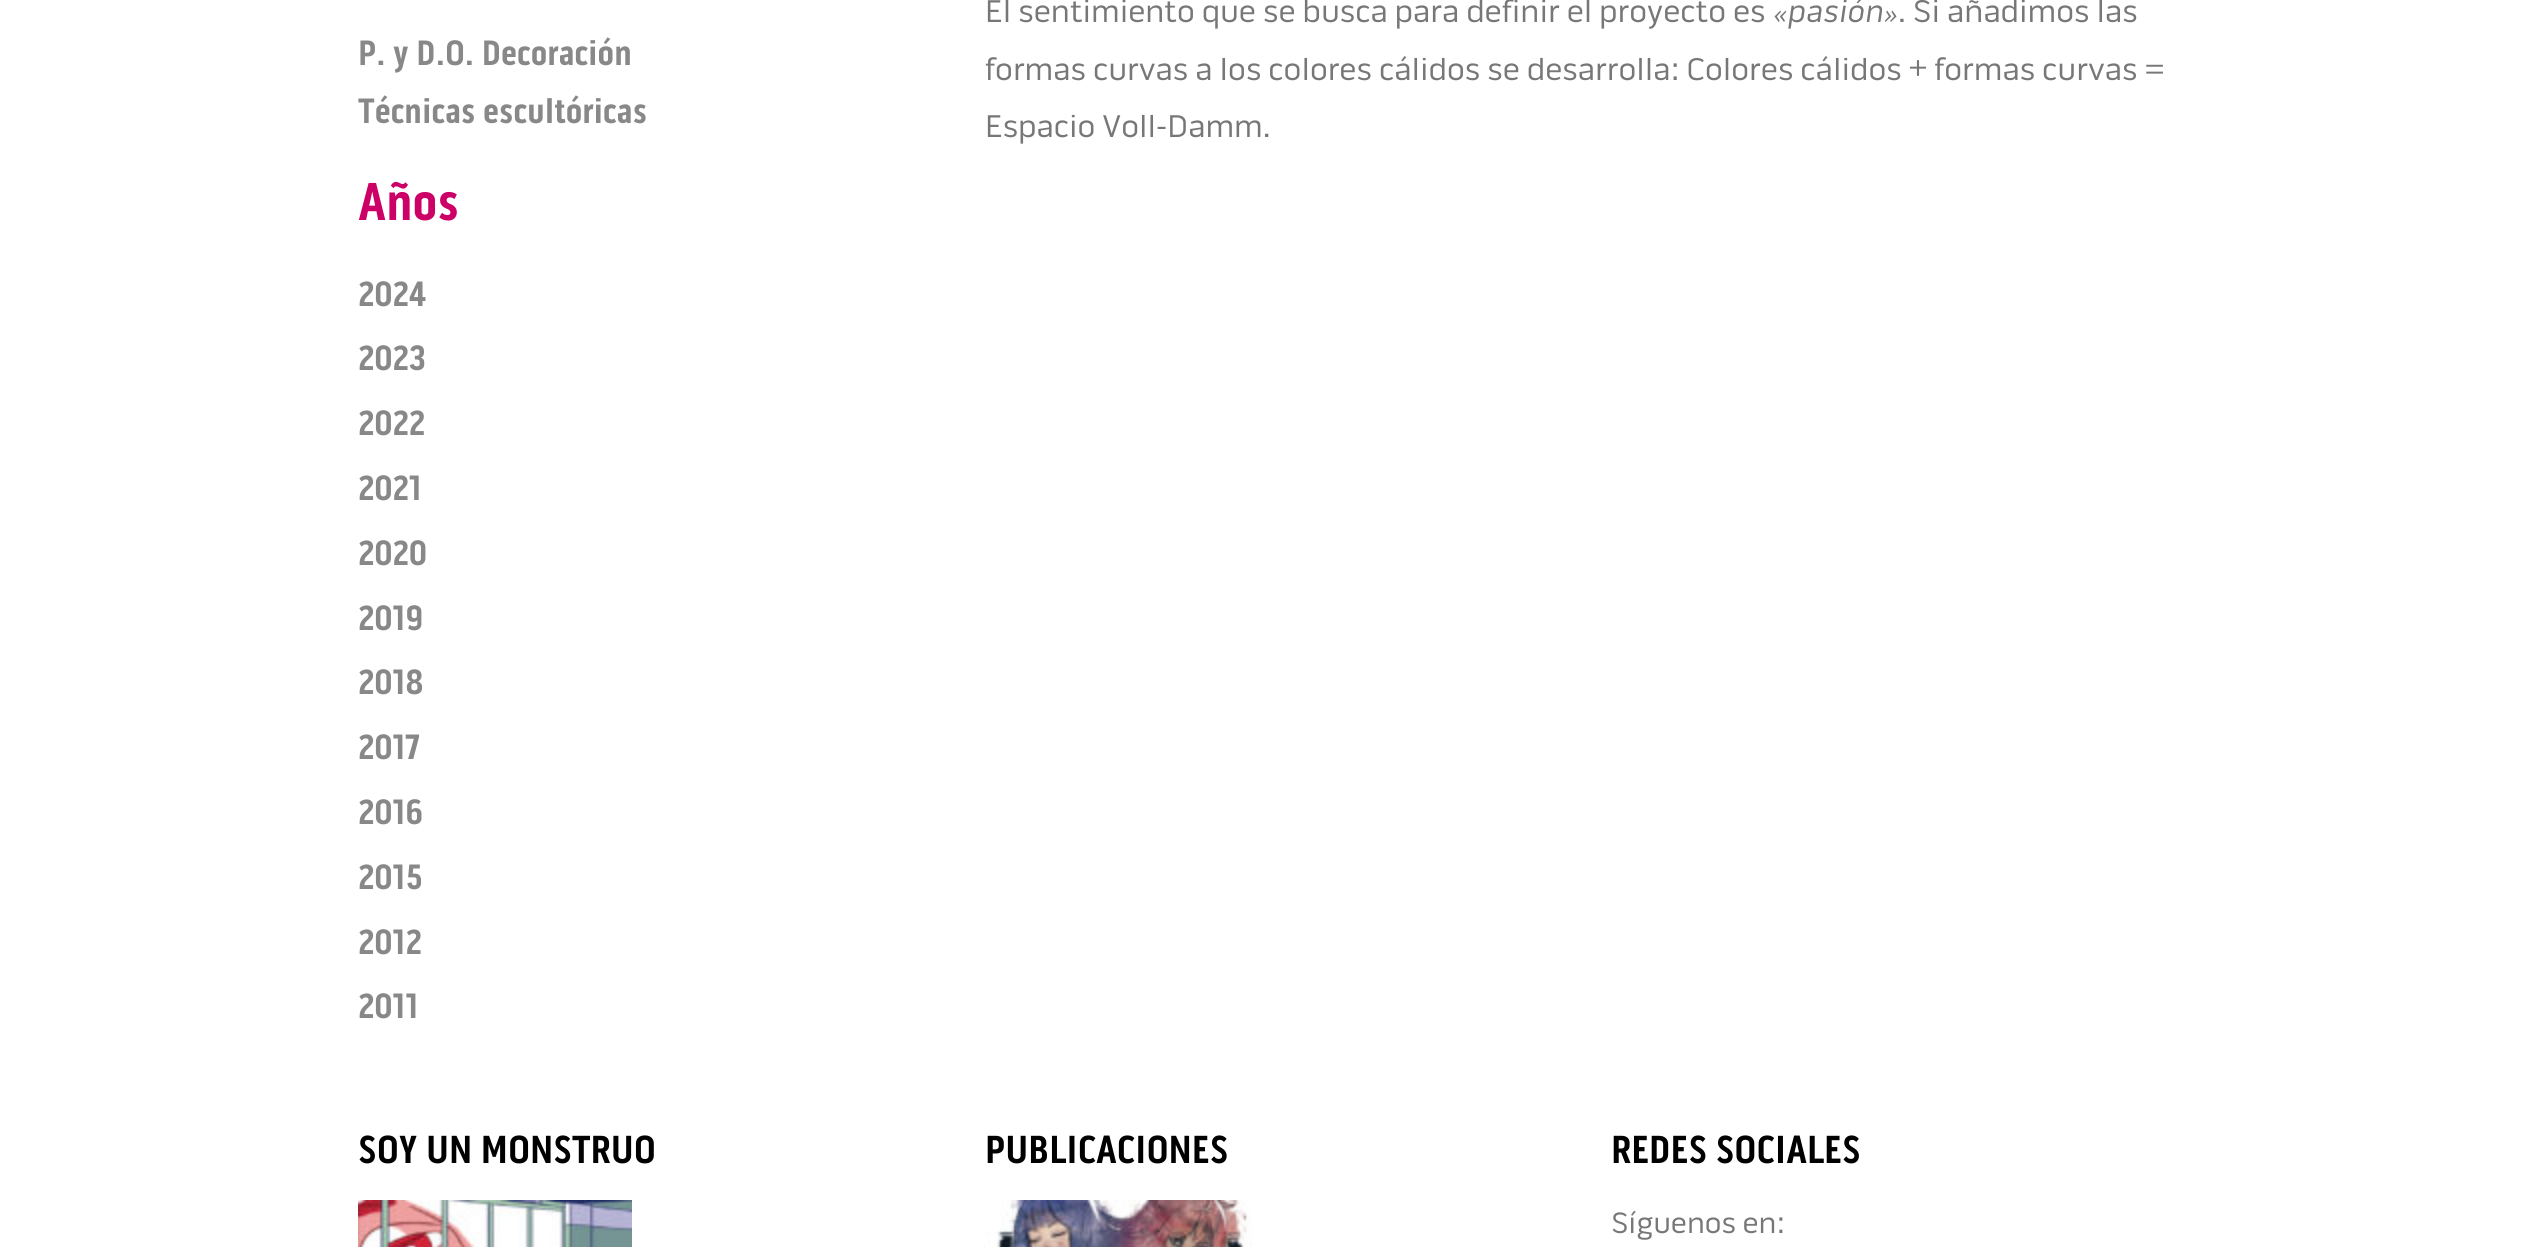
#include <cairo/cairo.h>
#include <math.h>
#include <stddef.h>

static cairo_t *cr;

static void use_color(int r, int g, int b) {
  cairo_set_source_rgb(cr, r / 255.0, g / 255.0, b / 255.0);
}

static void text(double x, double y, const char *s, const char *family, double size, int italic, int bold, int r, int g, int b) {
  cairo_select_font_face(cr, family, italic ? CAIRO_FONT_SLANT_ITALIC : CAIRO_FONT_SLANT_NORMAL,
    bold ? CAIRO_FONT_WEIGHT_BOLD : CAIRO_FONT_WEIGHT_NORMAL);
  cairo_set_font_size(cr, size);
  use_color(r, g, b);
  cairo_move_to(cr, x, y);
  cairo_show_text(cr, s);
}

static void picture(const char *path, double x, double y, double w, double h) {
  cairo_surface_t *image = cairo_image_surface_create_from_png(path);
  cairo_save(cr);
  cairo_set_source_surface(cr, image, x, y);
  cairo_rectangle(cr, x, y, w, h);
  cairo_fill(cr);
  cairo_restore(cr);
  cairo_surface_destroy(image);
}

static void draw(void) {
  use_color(255, 255, 255);
  cairo_paint(cr);
  picture("img_01.png", 358, 1200, 274, 47);
  picture("img_02.png", 984, 1200, 268, 47);
  text(358, 65, "P. y D.O. Decoración", "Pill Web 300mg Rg", 36, 0, 1, 136, 136, 136);
  text(358, 123, "Técnicas escultóricas", "Pill Web 300mg Rg", 36, 0, 1, 136, 136, 136);
  text(358, 220, "Años", "Pill Web 300mg Rg", 54, 0, 1, 204, 0, 102);
  text(358, 306, "2024", "Pill Web 300mg Rg", 36, 0, 1, 136, 136, 136);
  text(358, 370, "2023", "Pill Web 300mg Rg", 36, 0, 1, 136, 136, 136);
  text(358, 435, "2022", "Pill Web 300mg Rg", 36, 0, 1, 136, 136, 136);
  text(358, 500, "2021", "Pill Web 300mg Rg", 36, 0, 1, 136, 136, 136);
  text(358, 565, "2020", "Pill Web 300mg Rg", 36, 0, 1, 136, 136, 136);
  text(358, 630, "2019", "Pill Web 300mg Rg", 36, 0, 1, 136, 136, 136);
  text(358, 694, "2018", "Pill Web 300mg Rg", 36, 0, 1, 136, 136, 136);
  text(358, 759, "2017", "Pill Web 300mg Rg", 36, 0, 1, 136, 136, 136);
  text(358, 824, "2016", "Pill Web 300mg Rg", 36, 0, 1, 136, 136, 136);
  text(358, 889, "2015", "Pill Web 300mg Rg", 36, 0, 1, 136, 136, 136);
  text(358, 954, "2012", "Pill Web 300mg Rg", 36, 0, 1, 136, 136, 136);
  text(358, 1018, "2011", "Pill Web 300mg Rg", 36, 0, 1, 136, 136, 136);
  text(985, 22, "El sentimiento que se busca para definir el proyecto es", "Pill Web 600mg", 32, 0, 0, 119, 119, 119);
  text(1772, 22, "«pasión»", "Pill Web 600mg", 32, 1, 0, 119, 119, 119);
  text(1898, 22, ". Si añadimos las", "Pill Web 600mg", 32, 0, 0, 119, 119, 119);
  text(985, 80, "formas curvas a los colores cálidos se desarrolla: Colores cálidos + formas curvas =", "Pill Web 600mg", 32, 0, 0, 119, 119, 119);
  text(985, 137, "Espacio Voll-Damm.", "Pill Web 600mg", 32, 0, 0, 119, 119, 119);
  text(358, 1163, "SOY UN MONSTRUO", "Pill Web 300mg Rg", 40, 0, 1, 0, 0, 0);
  text(985, 1163, "PUBLICACIONES", "Pill Web 300mg Rg", 40, 0, 1, 0, 0, 0);
  text(1611, 1163, "REDES SOCIALES", "Pill Web 300mg Rg", 40, 0, 1, 0, 0, 0);
  text(1611, 1233, "Síguenos en:", "Pill Web 600mg", 30, 0, 0, 119, 119, 119);
}

int main(void) {
  cairo_surface_t *surface = cairo_image_surface_create(CAIRO_FORMAT_RGB24, 2535, 1247);
  cr = cairo_create(surface);
  cairo_font_options_t *options = cairo_font_options_create();
  cairo_font_options_set_hint_metrics(options, CAIRO_HINT_METRICS_OFF);
  cairo_font_options_set_hint_style(options, CAIRO_HINT_STYLE_NONE);
  cairo_set_font_options(cr, options);
  cairo_set_miter_limit(cr, 4);
  draw();
  cairo_surface_write_to_png(surface, "out.png");
  cairo_font_options_destroy(options);
  cairo_destroy(cr);
  cairo_surface_destroy(surface);
  return 0;
}
